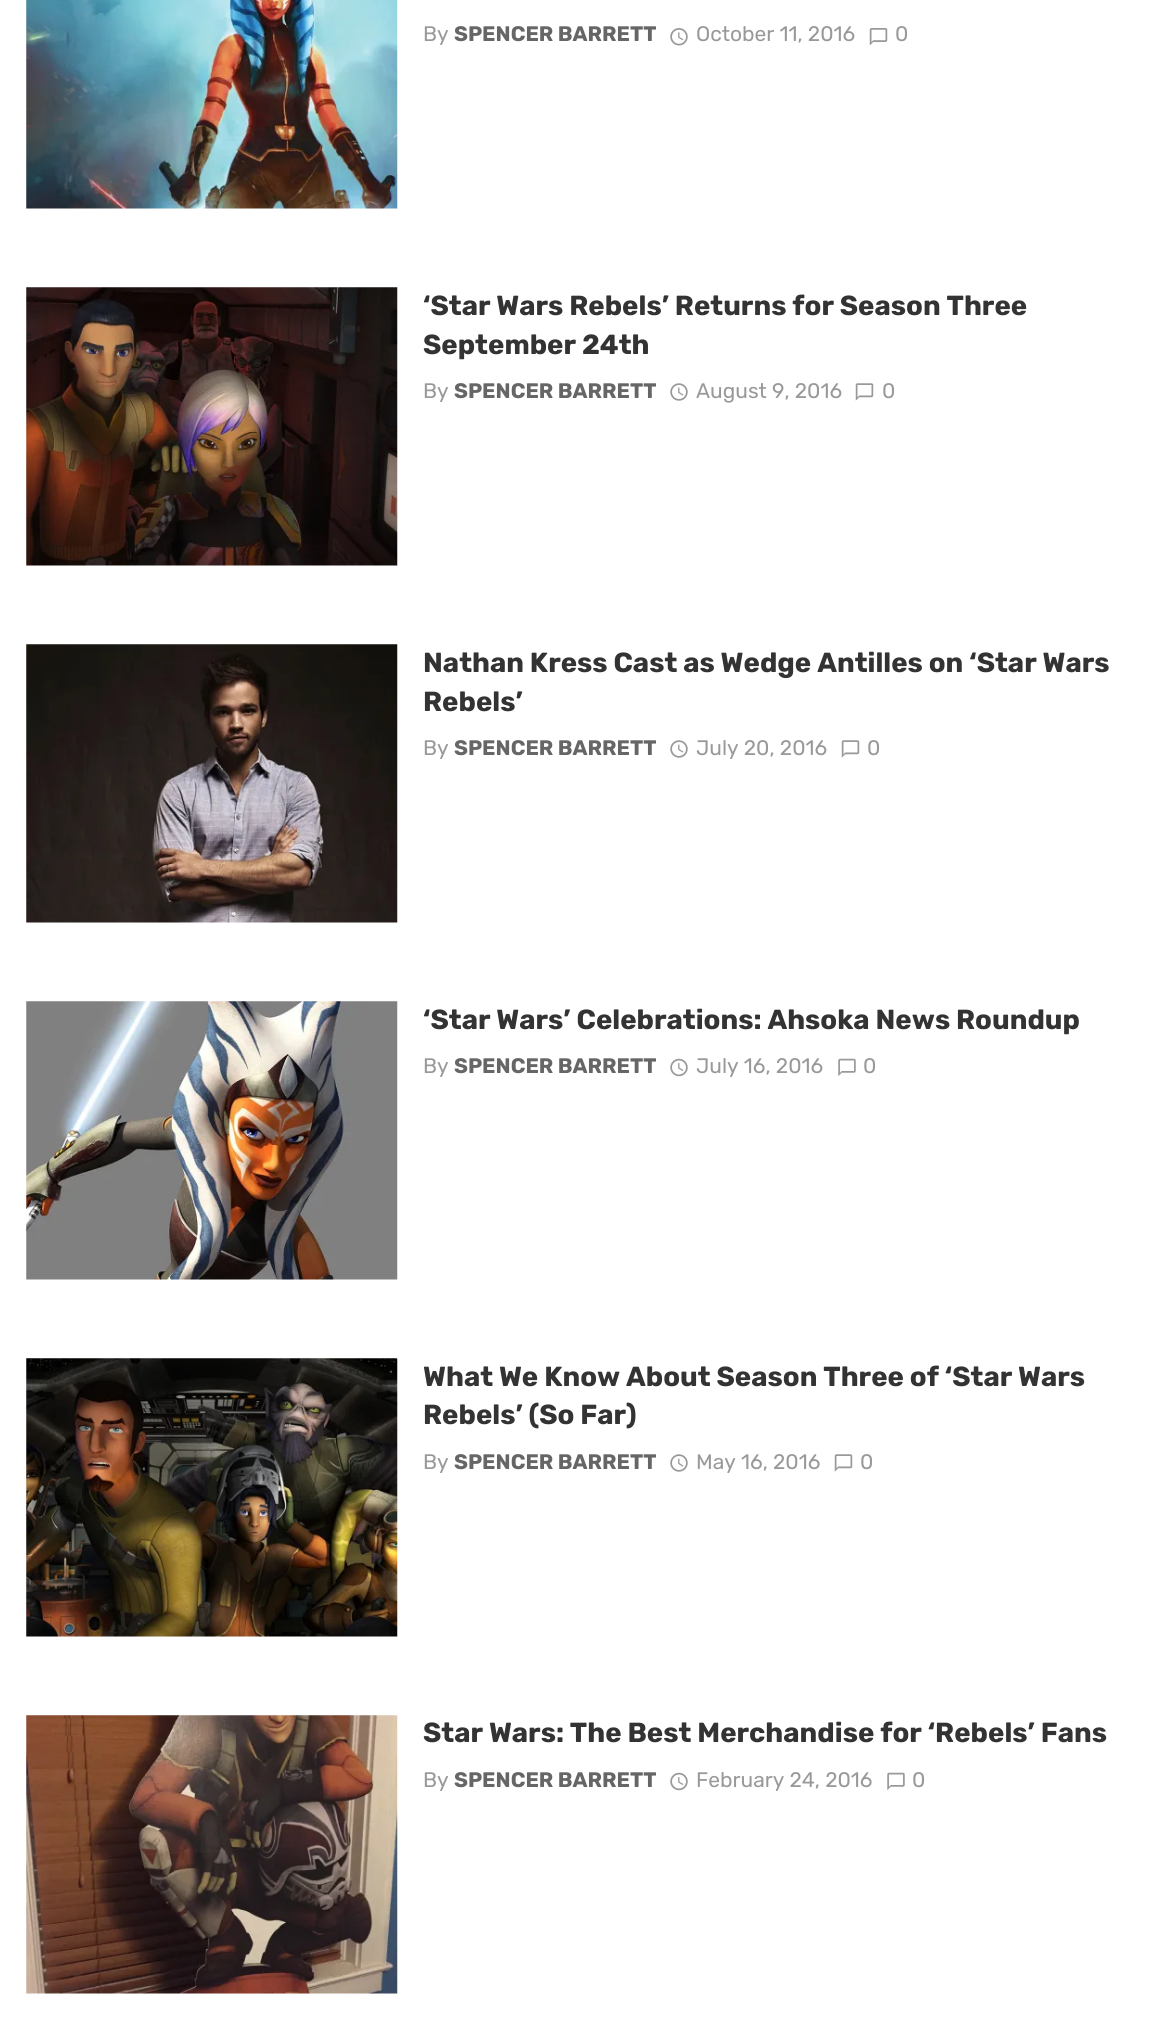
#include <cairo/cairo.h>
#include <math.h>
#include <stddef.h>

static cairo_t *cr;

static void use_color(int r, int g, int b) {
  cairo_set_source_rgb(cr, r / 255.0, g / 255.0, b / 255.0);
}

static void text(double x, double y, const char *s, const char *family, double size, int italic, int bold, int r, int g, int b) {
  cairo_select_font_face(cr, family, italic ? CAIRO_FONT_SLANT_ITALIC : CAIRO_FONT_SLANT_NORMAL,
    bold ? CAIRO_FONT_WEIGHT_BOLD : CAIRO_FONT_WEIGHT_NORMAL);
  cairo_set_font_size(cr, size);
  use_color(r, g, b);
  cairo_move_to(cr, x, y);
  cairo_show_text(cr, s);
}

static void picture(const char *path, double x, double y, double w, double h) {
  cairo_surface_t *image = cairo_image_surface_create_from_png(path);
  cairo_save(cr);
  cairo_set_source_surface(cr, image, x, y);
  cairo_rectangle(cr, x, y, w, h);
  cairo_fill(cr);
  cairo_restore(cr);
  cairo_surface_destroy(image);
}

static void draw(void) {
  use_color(255, 255, 255);
  cairo_paint(cr);
  picture("img_01.png", 26, 0, 372, 209);
  picture("img_02.png", 670, 28, 18, 18);
  picture("img_03.png", 869, 28, 19, 18);
  picture("img_04.png", 26, 287, 372, 279);
  picture("img_05.png", 670, 383, 18, 18);
  picture("img_06.png", 855, 383, 19, 18);
  picture("img_07.png", 26, 644, 372, 279);
  picture("img_05.png", 670, 740, 18, 18);
  picture("img_06.png", 841, 740, 19, 18);
  picture("img_08.png", 26, 1001, 372, 279);
  picture("img_09.png", 670, 1058, 18, 19);
  picture("img_10.png", 838, 1058, 18, 18);
  picture("img_11.png", 26, 1358, 372, 279);
  picture("img_05.png", 670, 1454, 18, 18);
  picture("img_06.png", 834, 1454, 19, 18);
  picture("img_12.png", 26, 1715, 372, 279);
  picture("img_09.png", 670, 1772, 18, 19);
  picture("img_10.png", 887, 1772, 18, 18);
  text(423, 41, "By", "Rubik", 21, 0, 0, 153, 153, 153);
  text(454, 41, "SPENCER BARRETT", "Rubik", 21, 0, 1, 102, 102, 102);
  text(696, 41, "October 11, 2016", "Rubik", 21, 0, 0, 153, 153, 153);
  text(895, 41, "0", "Rubik", 21, 0, 0, 153, 153, 153);
  text(423, 315, "‘Star Wars Rebels’ Returns for Season Three", "Rubik", 27.6, 0, 1, 51, 51, 51);
  text(423, 354, "September 24th", "Rubik", 27.6, 0, 1, 51, 51, 51);
  text(423, 398, "By", "Rubik", 21, 0, 0, 153, 153, 153);
  text(454, 398, "SPENCER BARRETT", "Rubik", 21, 0, 1, 102, 102, 102);
  text(696, 398, "August 9, 2016", "Rubik", 21, 0, 0, 153, 153, 153);
  text(882, 398, "0", "Rubik", 21, 0, 0, 153, 153, 153);
  text(423, 672, "Nathan Kress Cast as Wedge Antilles on ‘Star Wars", "Rubik", 27.6, 0, 1, 51, 51, 51);
  text(423, 711, "Rebels’", "Rubik", 27.6, 0, 1, 51, 51, 51);
  text(423, 755, "By", "Rubik", 21, 0, 0, 153, 153, 153);
  text(454, 755, "SPENCER BARRETT", "Rubik", 21, 0, 1, 102, 102, 102);
  text(696, 755, "July 20, 2016", "Rubik", 21, 0, 0, 153, 153, 153);
  text(867, 755, "0", "Rubik", 21, 0, 0, 153, 153, 153);
  text(423, 1029, "‘Star Wars’ Celebrations: Ahsoka News Roundup", "Rubik", 27.6, 0, 1, 51, 51, 51);
  text(423, 1073, "By", "Rubik", 21, 0, 0, 153, 153, 153);
  text(454, 1073, "SPENCER BARRETT", "Rubik", 21, 0, 1, 102, 102, 102);
  text(696, 1073, "July 16, 2016", "Rubik", 21, 0, 0, 153, 153, 153);
  text(863, 1073, "0", "Rubik", 21, 0, 0, 153, 153, 153);
  text(423, 1386, "What We Know About Season Three of ‘Star Wars", "Rubik", 27.6, 0, 1, 51, 51, 51);
  text(423, 1424, "Rebels’ (So Far)", "Rubik", 27.6, 0, 1, 51, 51, 51);
  text(423, 1469, "By", "Rubik", 21, 0, 0, 153, 153, 153);
  text(454, 1469, "SPENCER BARRETT", "Rubik", 21, 0, 1, 102, 102, 102);
  text(696, 1469, "May 16, 2016", "Rubik", 21, 0, 0, 153, 153, 153);
  text(860, 1469, "0", "Rubik", 21, 0, 0, 153, 153, 153);
  text(423, 1742, "Star Wars: The Best Merchandise for ‘Rebels’ Fans", "Rubik", 27.6, 0, 1, 51, 51, 51);
  text(423, 1787, "By", "Rubik", 21, 0, 0, 153, 153, 153);
  text(454, 1787, "SPENCER BARRETT", "Rubik", 21, 0, 1, 102, 102, 102);
  text(696, 1787, "February 24, 2016", "Rubik", 21, 0, 0, 153, 153, 153);
  text(912, 1787, "0", "Rubik", 21, 0, 0, 153, 153, 153);
}

int main(void) {
  cairo_surface_t *surface = cairo_image_surface_create(CAIRO_FORMAT_RGB24, 1176, 2029);
  cr = cairo_create(surface);
  cairo_font_options_t *options = cairo_font_options_create();
  cairo_font_options_set_hint_metrics(options, CAIRO_HINT_METRICS_OFF);
  cairo_font_options_set_hint_style(options, CAIRO_HINT_STYLE_NONE);
  cairo_set_font_options(cr, options);
  cairo_set_miter_limit(cr, 4);
  draw();
  cairo_surface_write_to_png(surface, "out.png");
  cairo_font_options_destroy(options);
  cairo_destroy(cr);
  cairo_surface_destroy(surface);
  return 0;
}
